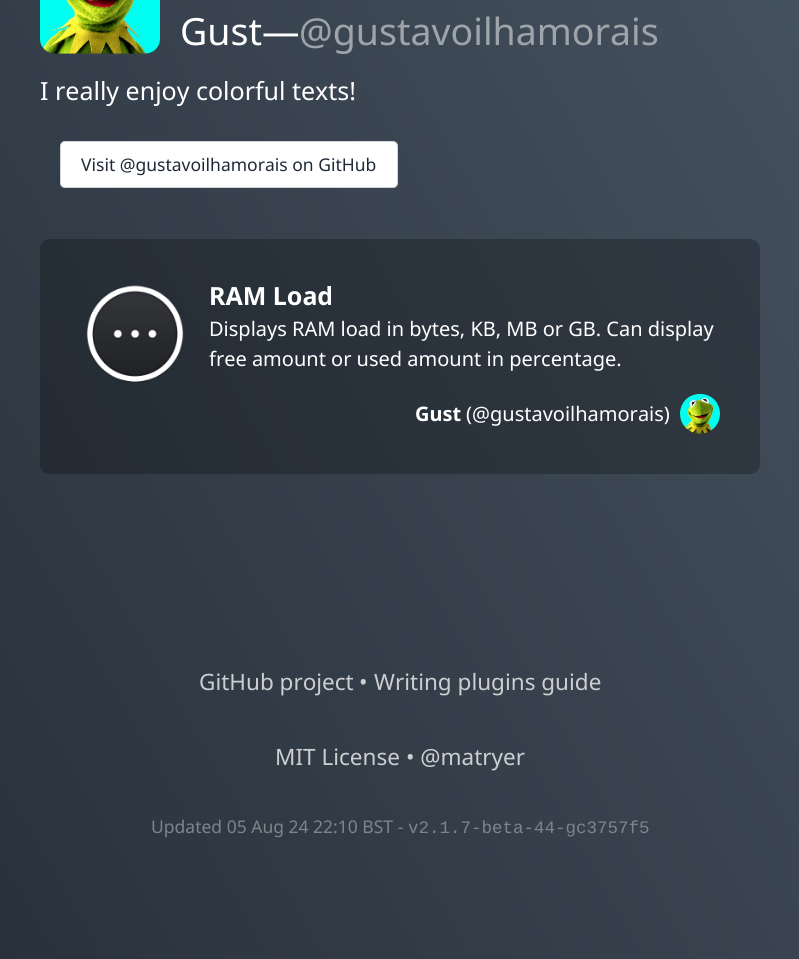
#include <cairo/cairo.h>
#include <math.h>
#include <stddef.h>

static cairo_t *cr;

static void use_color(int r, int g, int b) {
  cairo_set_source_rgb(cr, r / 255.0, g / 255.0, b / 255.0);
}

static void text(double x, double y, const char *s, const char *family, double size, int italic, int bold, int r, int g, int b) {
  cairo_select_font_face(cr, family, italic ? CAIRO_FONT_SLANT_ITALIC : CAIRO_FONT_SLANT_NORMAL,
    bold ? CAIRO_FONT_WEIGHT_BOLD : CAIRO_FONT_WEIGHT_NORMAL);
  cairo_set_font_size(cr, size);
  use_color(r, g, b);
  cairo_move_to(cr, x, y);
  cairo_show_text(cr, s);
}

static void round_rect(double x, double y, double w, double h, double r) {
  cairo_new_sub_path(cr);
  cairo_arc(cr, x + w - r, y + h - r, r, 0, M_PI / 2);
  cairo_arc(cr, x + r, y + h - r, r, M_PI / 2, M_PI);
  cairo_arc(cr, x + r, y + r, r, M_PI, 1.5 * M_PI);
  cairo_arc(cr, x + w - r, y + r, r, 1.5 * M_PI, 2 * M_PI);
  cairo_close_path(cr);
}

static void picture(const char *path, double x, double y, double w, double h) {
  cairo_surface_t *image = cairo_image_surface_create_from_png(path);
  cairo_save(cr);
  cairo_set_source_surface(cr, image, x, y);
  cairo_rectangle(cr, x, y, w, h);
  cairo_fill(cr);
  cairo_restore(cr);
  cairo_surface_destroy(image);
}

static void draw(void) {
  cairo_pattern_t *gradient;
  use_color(255, 255, 255);
  cairo_paint(cr);
  gradient = cairo_pattern_create_linear(-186, 638, 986, -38);
  cairo_pattern_add_color_stop_rgba(gradient, 0, 0.161, 0.196, 0.235, 1);
  cairo_pattern_add_color_stop_rgba(gradient, 1, 0.282, 0.333, 0.388, 1);
  cairo_set_source(cr, gradient);
  cairo_pattern_destroy(gradient);
  cairo_rectangle(cr, 0, 0, 799, 959);
  cairo_fill(cr);
  picture("img_01.png", 40, 0, 120, 54);
  use_color(255, 255, 255);
  round_rect(60.5, 141.5, 337, 46, 4.5);
  cairo_fill_preserve(cr);
  use_color(209, 213, 219);
  cairo_set_line_width(cr, 1);
  cairo_stroke(cr);
  cairo_set_source_rgba(cr, 0, 0, 0, 0.25);
  round_rect(40, 239, 720, 235, 10);
  cairo_fill(cr);
  picture("img_02.png", 86, 285, 98, 98);
  picture("img_03.png", 680, 393, 40, 41);
  text(180, 45, "Gust—", "Noto Sans", 37.5, 0, 0, 255, 255, 255);
  text(299, 45, "@gustavoilhamorais", "Noto Sans", 37.5, 0, 0, 158, 164, 170);
  text(40, 100, "I really enjoy colorful texts!", "Noto Sans", 25, 0, 0, 255, 255, 255);
  text(81, 171, "Visit @gustavoilhamorais on GitHub", "Noto Sans", 17.5, 0, 0, 31, 41, 55);
  text(209, 305, "RAM Load", "Noto Sans", 25, 0, 1, 255, 255, 255);
  text(209, 336, "Displays RAM load in bytes, KB, MB or GB. Can display", "Noto Sans", 20, 0, 0, 255, 255, 255);
  text(209, 366, "free amount or used amount in percentage.", "Noto Sans", 20, 0, 0, 255, 255, 255);
  text(415, 421, "Gust", "Noto Sans", 20, 0, 1, 255, 255, 255);
  text(466, 421, "(@gustavoilhamorais)", "Noto Sans", 20, 0, 0, 255, 255, 255);
  text(199, 690, "GitHub project", "Noto Sans", 22.5, 0, 0, 204, 206, 209);
  text(359, 690, "•", "Noto Sans", 22.5, 0, 0, 204, 206, 209);
  text(374, 690, "Writing plugins guide", "Noto Sans", 22.5, 0, 0, 204, 206, 209);
  text(275, 765, "MIT License", "Noto Sans", 22.5, 0, 0, 204, 206, 209);
  text(406, 765, "• @matryer", "Noto Sans", 22.5, 0, 0, 204, 206, 209);
  text(151, 833, "Updated 05 Aug 24 22:10 BST -", "Noto Sans", 17.5, 0, 0, 126, 132, 139);
  text(408, 833, "v2.1.7-beta-44-gc3757f5", "Liberation Mono", 17.5, 0, 0, 126, 132, 139);
}

int main(void) {
  cairo_surface_t *surface = cairo_image_surface_create(CAIRO_FORMAT_RGB24, 799, 959);
  cr = cairo_create(surface);
  cairo_font_options_t *options = cairo_font_options_create();
  cairo_font_options_set_hint_metrics(options, CAIRO_HINT_METRICS_OFF);
  cairo_font_options_set_hint_style(options, CAIRO_HINT_STYLE_NONE);
  cairo_set_font_options(cr, options);
  cairo_set_miter_limit(cr, 4);
  draw();
  cairo_surface_write_to_png(surface, "out.png");
  cairo_font_options_destroy(options);
  cairo_destroy(cr);
  cairo_surface_destroy(surface);
  return 0;
}
